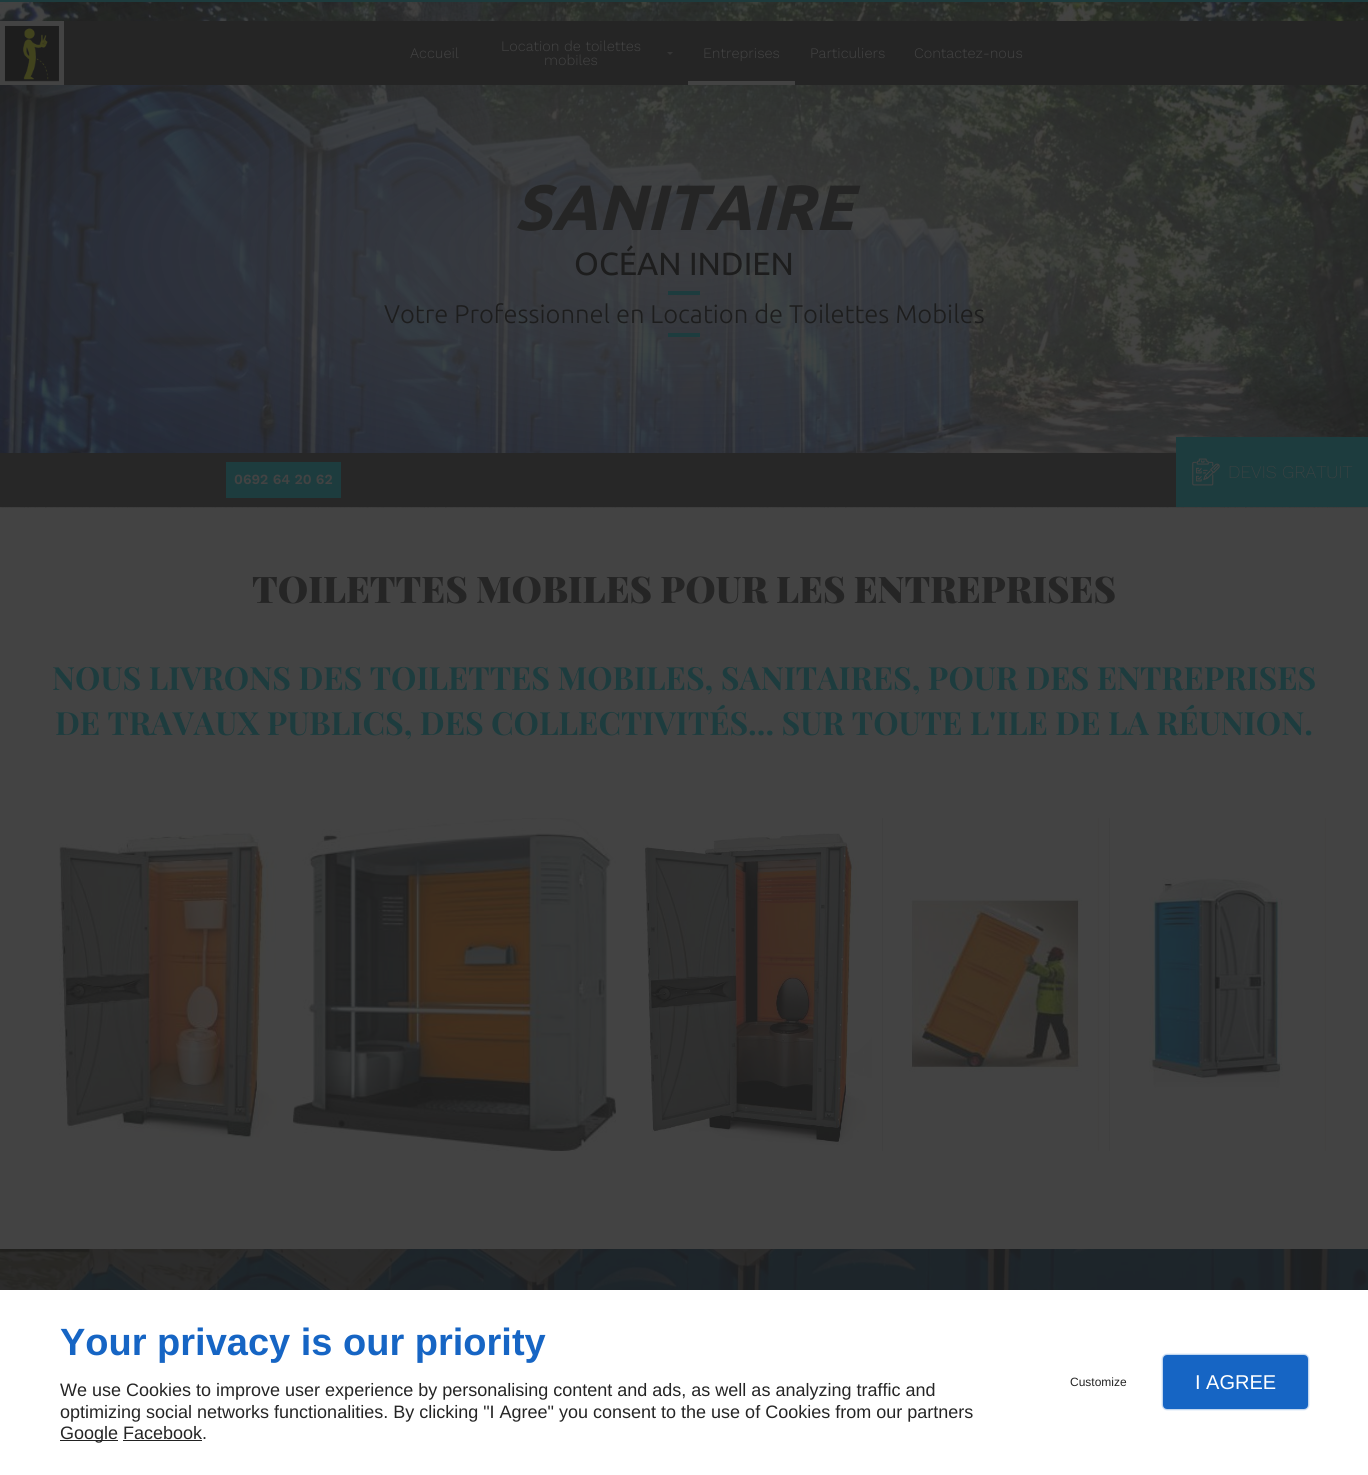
#include <cairo/cairo.h>
#include <math.h>
#include <stddef.h>

static cairo_t *cr;

static void use_color(int r, int g, int b) {
  cairo_set_source_rgb(cr, r / 255.0, g / 255.0, b / 255.0);
}

static void text(double x, double y, const char *s, const char *family, double size, int italic, int bold, int r, int g, int b) {
  cairo_select_font_face(cr, family, italic ? CAIRO_FONT_SLANT_ITALIC : CAIRO_FONT_SLANT_NORMAL,
    bold ? CAIRO_FONT_WEIGHT_BOLD : CAIRO_FONT_WEIGHT_NORMAL);
  cairo_set_font_size(cr, size);
  use_color(r, g, b);
  cairo_move_to(cr, x, y);
  cairo_show_text(cr, s);
}

static void box(double x, double y, double w, double h, int r, int g, int b) {
  use_color(r, g, b);
  cairo_rectangle(cr, x, y, w, h);
  cairo_fill(cr);
}

static void round_rect(double x, double y, double w, double h, double r) {
  cairo_new_sub_path(cr);
  cairo_arc(cr, x + w - r, y + h - r, r, 0, M_PI / 2);
  cairo_arc(cr, x + r, y + h - r, r, M_PI / 2, M_PI);
  cairo_arc(cr, x + r, y + r, r, M_PI, 1.5 * M_PI);
  cairo_arc(cr, x + w - r, y + r, r, 1.5 * M_PI, 2 * M_PI);
  cairo_close_path(cr);
}

static void shadow(double x, double y, double w, double h, double r, double blur, double alpha) {
  cairo_push_group_with_content(cr, CAIRO_CONTENT_ALPHA);
  cairo_set_operator(cr, CAIRO_OPERATOR_SOURCE);
  for (int i = 15; i >= -15 && fmin(w, h) + blur * i / 3 > 0; i -= 2) {
    double e = blur * i / 6;
    cairo_set_source_rgba(cr, 0, 0, 0, alpha * erfc((i - 1) / 8.5) / 2);
    round_rect(x - e, y - e, w + 2 * e, h + 2 * e, fmax(0, fmin(r + e + blur * .6, fmin(w, h) / 2 + e)));
    cairo_fill(cr);
  }
  cairo_pattern_t *soft = cairo_pop_group(cr);
  cairo_mask(cr, soft);
  cairo_pattern_destroy(soft);
}

static void picture(const char *path, double x, double y, double w, double h) {
  cairo_surface_t *image = cairo_image_surface_create_from_png(path);
  cairo_save(cr);
  cairo_set_source_surface(cr, image, x, y);
  cairo_rectangle(cr, x, y, w, h);
  cairo_fill(cr);
  cairo_restore(cr);
  cairo_surface_destroy(image);
}

static void draw(void) {
  cairo_pattern_t *gradient;
  use_color(67, 67, 67);
  cairo_paint(cr);
  box(0, 0, 1368, 2, 29, 60, 62);
  picture("img_01.png", 0, 2, 1368, 451);
  gradient = cairo_pattern_create_radial(0, 0, 0, 0, 0, 1);
  cairo_pattern_set_matrix(gradient, &(cairo_matrix_t){1.0 / 967, 0, 0, 1.0 / 358, -1.0 * 684 / 967, -1.0 * 253 / 358});
  cairo_pattern_add_color_stop_rgba(gradient, 0, 0.263, 0.263, 0.263, 0.8);
  cairo_pattern_add_color_stop_rgba(gradient, 1, 0.263, 0.263, 0.263, 0);
  cairo_set_source(cr, gradient);
  cairo_pattern_destroy(gradient);
  cairo_rectangle(cr, 0, 2, 1368, 451);
  cairo_fill(cr);
  box(64, 21, 1304, 64, 37, 37, 37);
  box(0, 21, 64, 64, 67, 67, 67);
  picture("img_02.png", 4, 25, 55, 57);
  use_color(54, 54, 54);
  cairo_new_path(cr);
  cairo_move_to(cr, 667, 52);
  cairo_line_to(cr, 673, 52);
  cairo_line_to(cr, 670, 55);
  cairo_close_path(cr);
  cairo_fill(cr);
  box(688, 81, 107, 4, 67, 67, 67);
  box(668, 333, 32, 4, 29, 60, 62);
  box(668, 291, 32, 4, 29, 60, 62);
  box(0, 453, 1176, 54, 39, 39, 39);
  box(226, 462, 115, 36, 29, 60, 62);
  box(1176, 437, 192, 70, 29, 60, 62);
  picture("img_03.png", 1192, 458, 28, 28);
  box(1366, 507, 2, 1, 64, 64, 64);
  picture("img_04.png", 0, 507, 1366, 1);
  picture("img_05.png", 59, 832, 218, 307);
  picture("img_06.png", 293, 818, 323, 333);
  picture("img_07.png", 643, 832, 229, 313);
  picture("img_08.png", 882, 818, 217, 333);
  picture("img_09.png", 1109, 818, 217, 333);
  picture("img_10.png", 0, 1249, 1368, 41);
  box(0, 1290, 1368, 185, 255, 255, 255);
  box(60, 1440, 58, 1, 34, 34, 34);
  use_color(22, 101, 196);
  shadow(1162, 1354, 147, 56, 5, 0.5, 0.3);
  use_color(22, 101, 196);
  round_rect(1164, 1356, 143, 52, 3);
  cairo_fill_preserve(cr);
  cairo_stroke(cr);
  text(410, 58, "Accueil", "Work Sans Light", 14.5, 0, 0, 67, 67, 67);
  text(501, 51, "Location de toilettes", "Work Sans Light", 14.5, 0, 0, 67, 67, 67);
  text(544, 65, "mobiles", "Work Sans Light", 14.5, 0, 0, 67, 67, 67);
  text(703, 58, "Entreprises", "Work Sans Light", 14.5, 0, 0, 67, 67, 67);
  text(810, 58, "Particuliers", "Work Sans Light", 14.5, 0, 0, 67, 67, 67);
  text(914, 58, "Contactez-nous", "Work Sans Light", 14.5, 0, 0, 67, 67, 67);
  text(514, 230, "SANITAIRE", "Ubuntu", 64, 1, 1, 37, 37, 37);
  text(574, 275, "OCÉAN INDIEN", "Ubuntu", 32, 0, 0, 29, 29, 29);
  text(384, 323, "Votre Professionnel en Location de Toilettes Mobiles", "Ubuntu Light", 25.6, 0, 0, 29, 29, 29);
  text(234, 484, "0692 64 20 62", "Work Sans SemiBold", 14, 0, 0, 67, 67, 67);
  text(1228, 478, "DEVIS GRATUIT", "Work Sans ExtraLight", 18, 0, 0, 67, 67, 67);
  text(252, 603, "TOILETTES MOBILES POUR LES ENTREPRISES", "Playfair Display Black", 36.8, 0, 0, 37, 37, 37);
  text(52, 690, "NOUS LIVRONS DES TOILETTES MOBILES, SANITAIRES, POUR DES ENTREPRISES", "Playfair Display", 32, 0, 1, 29, 60, 62);
  text(55, 735, "DE TRAVAUX PUBLICS, DES COLLECTIVITÉS... SUR TOUTE L'ILE DE LA RÉUNION.", "Playfair Display", 32, 0, 1, 29, 60, 62);
  text(60, 1355, "Your privacy is our priority", "Liberation Sans", 38, 0, 1, 22, 101, 196);
  text(60, 1396, "We use Cookies to improve user experience by personalising content and ads, as well as analyzing traffic and", "Liberation Sans", 18, 0, 0, 37, 37, 37);
  text(60, 1418, "optimizing social networks functionalities. By clicking \"I Agree\" you consent to the use of Cookies from our partners", "Liberation Sans", 18, 0, 0, 37, 37, 37);
  text(60, 1439, "Google Facebook.", "Liberation Sans", 18, 0, 0, 37, 37, 37);
  box(123, 1440, 79, 1, 34, 34, 34);
  text(1070, 1386, "Customize", "Liberation Sans", 12, 0, 0, 37, 37, 37);
  text(1195, 1389, "I AGREE", "Liberation Sans", 20, 0, 0, 255, 255, 255);
}

int main(void) {
  cairo_surface_t *surface = cairo_image_surface_create(CAIRO_FORMAT_RGB24, 1368, 1475);
  cr = cairo_create(surface);
  cairo_font_options_t *options = cairo_font_options_create();
  cairo_font_options_set_hint_metrics(options, CAIRO_HINT_METRICS_OFF);
  cairo_font_options_set_hint_style(options, CAIRO_HINT_STYLE_NONE);
  cairo_set_font_options(cr, options);
  cairo_set_miter_limit(cr, 4);
  draw();
  cairo_surface_write_to_png(surface, "out.png");
  cairo_font_options_destroy(options);
  cairo_destroy(cr);
  cairo_surface_destroy(surface);
  return 0;
}
